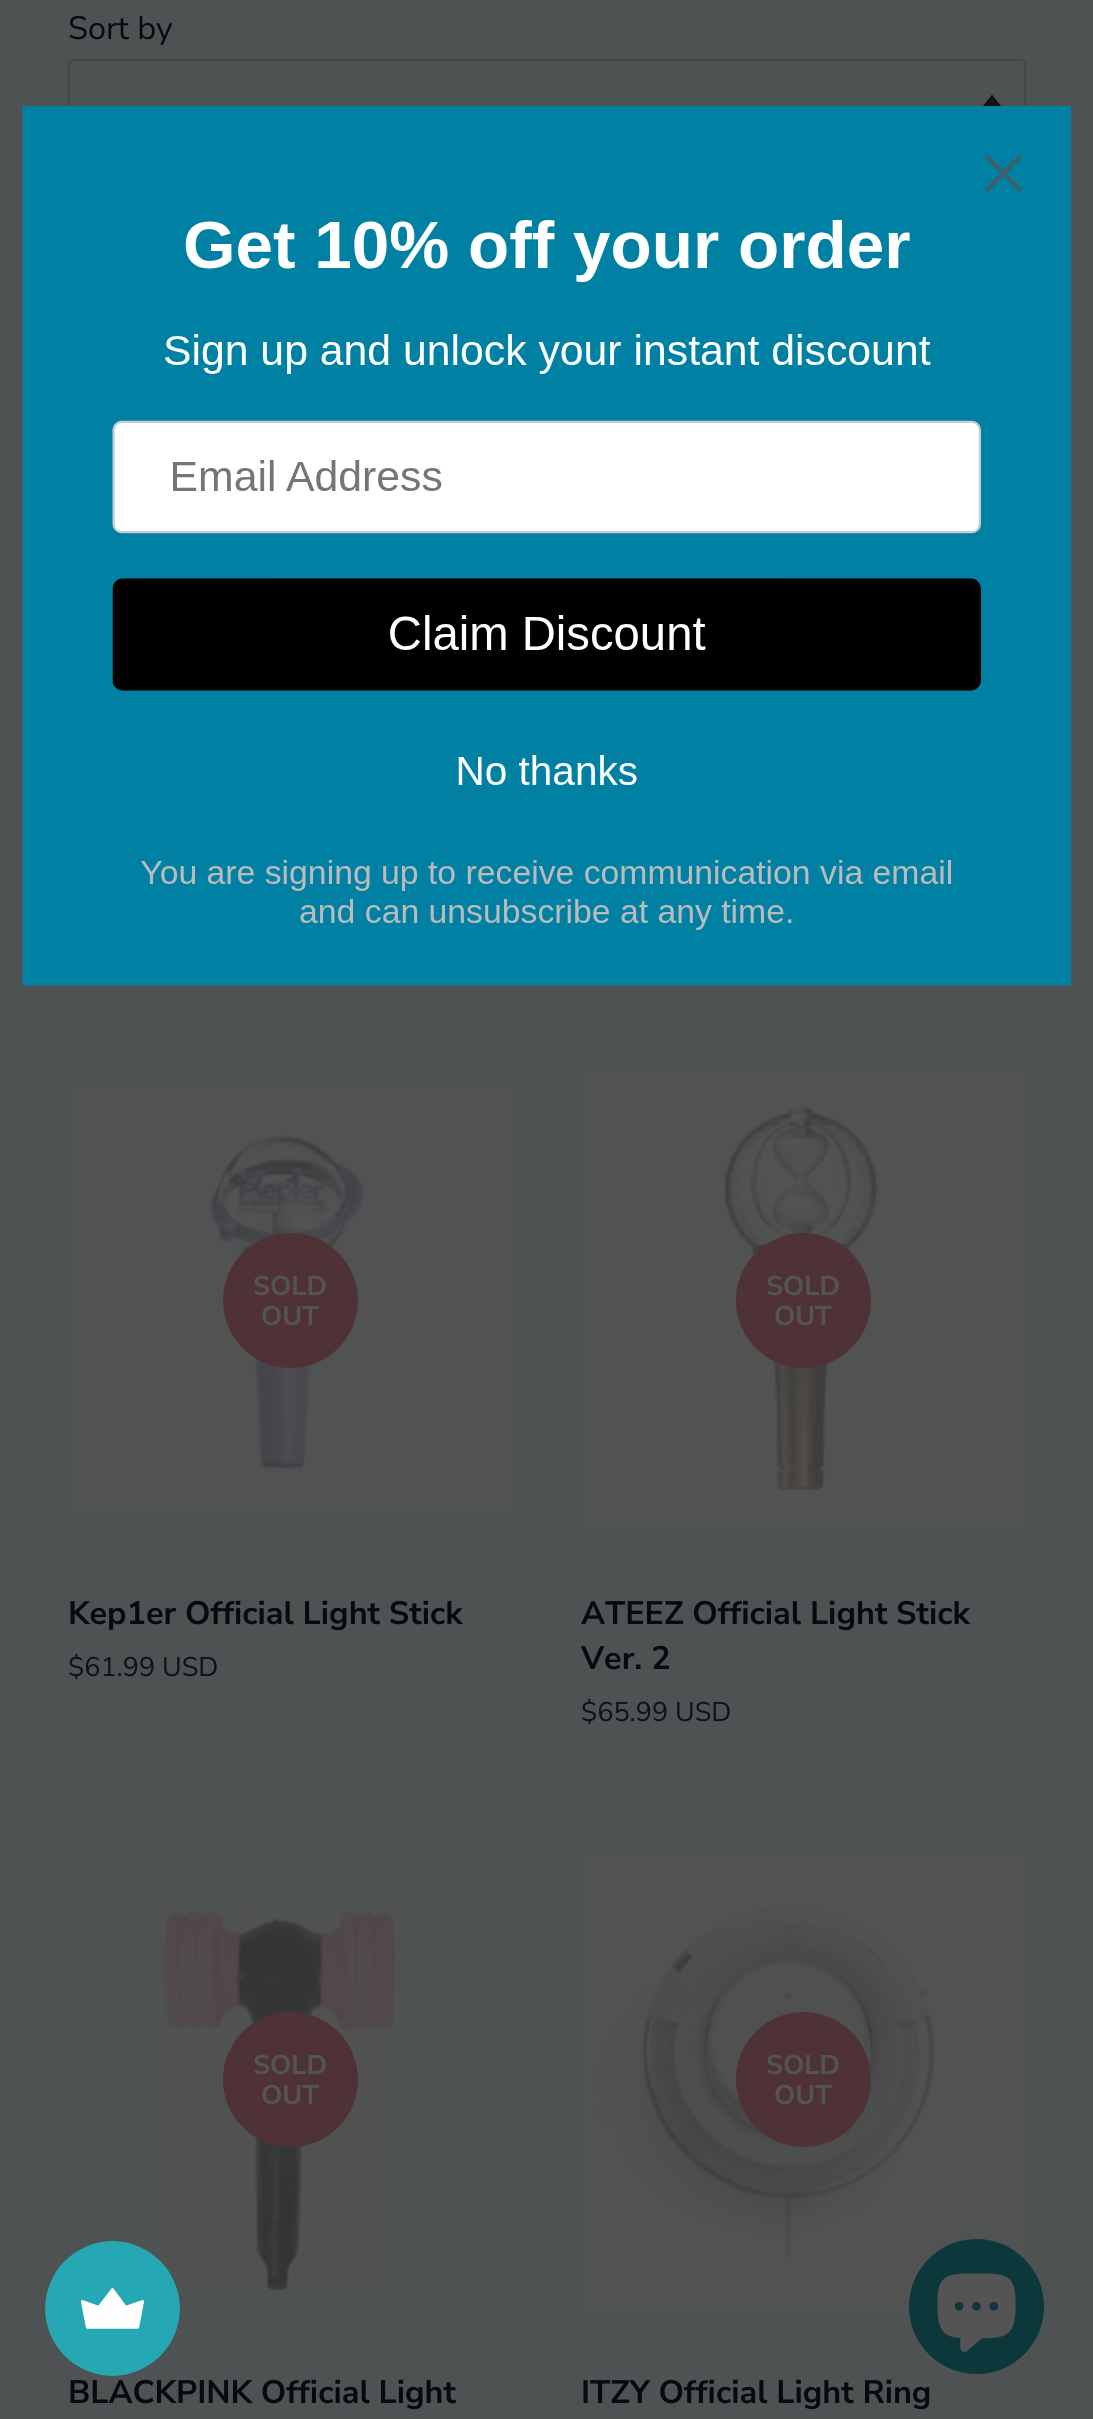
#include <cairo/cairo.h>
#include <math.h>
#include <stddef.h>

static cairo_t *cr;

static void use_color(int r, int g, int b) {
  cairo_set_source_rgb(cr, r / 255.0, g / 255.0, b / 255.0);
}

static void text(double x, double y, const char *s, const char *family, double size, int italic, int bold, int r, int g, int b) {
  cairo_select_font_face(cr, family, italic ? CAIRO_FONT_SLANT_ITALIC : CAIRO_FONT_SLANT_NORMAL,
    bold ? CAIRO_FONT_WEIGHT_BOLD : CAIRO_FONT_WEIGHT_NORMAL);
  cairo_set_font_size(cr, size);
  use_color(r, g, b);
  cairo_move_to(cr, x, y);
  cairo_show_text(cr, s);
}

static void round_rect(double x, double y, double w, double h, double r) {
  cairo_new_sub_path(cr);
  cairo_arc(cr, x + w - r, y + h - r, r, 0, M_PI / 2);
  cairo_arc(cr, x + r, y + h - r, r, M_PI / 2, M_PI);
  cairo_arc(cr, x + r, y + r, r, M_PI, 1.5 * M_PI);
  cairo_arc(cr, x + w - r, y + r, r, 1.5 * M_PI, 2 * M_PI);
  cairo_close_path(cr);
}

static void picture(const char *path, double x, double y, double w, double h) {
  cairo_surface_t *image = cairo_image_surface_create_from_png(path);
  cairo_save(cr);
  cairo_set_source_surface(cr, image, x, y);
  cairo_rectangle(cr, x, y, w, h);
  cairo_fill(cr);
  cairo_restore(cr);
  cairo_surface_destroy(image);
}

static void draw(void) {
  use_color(241, 249, 250);
  cairo_paint(cr);
  use_color(51, 51, 51);
  cairo_new_path(cr);
  cairo_move_to(cr, 992, 94.5);
  cairo_line_to(cr, 983, 106);
  cairo_line_to(cr, 1001, 106);
  cairo_close_path(cr);
  cairo_fill(cr);
  round_rect(69, 60, 956, 97, 4);
  use_color(209, 216, 220);
  cairo_stroke(cr);
  picture("img_02.png", 68, 1089, 445, 423);
  use_color(241, 152, 160);
  cairo_arc(cr, 290.5, 1300.5, 67.5, 0, 2 * M_PI);
  cairo_fill(cr);
  picture("img_03.png", 581, 1067, 445, 465);
  cairo_arc(cr, 803.5, 1300.5, 67.5, 0, 2 * M_PI);
  cairo_fill(cr);
  picture("img_04.png", 163, 1909, 234, 383);
  cairo_arc(cr, 290.5, 2079.5, 67.5, 0, 2 * M_PI);
  cairo_fill(cr);
  picture("img_05.png", 581, 1850, 445, 461);
  cairo_arc(cr, 803.5, 2079.5, 67.5, 0, 2 * M_PI);
  cairo_fill(cr);
  use_color(37, 168, 180);
  cairo_arc(cr, 976.5, 2306.5, 67.5, 0, 2 * M_PI);
  cairo_fill(cr);
  picture("img_06.png", 937, 2273, 79, 79);
  text(68, 39, "Sort by", "Nunito Sans", 32.4, 0, 0, 27, 30, 47);
  text(253, 1295, "SOLD", "Nunito Sans", 27, 0, 1, 255, 255, 255);
  text(261, 1325, "OUT", "Nunito Sans", 27, 0, 1, 255, 255, 255);
  text(68, 1624, "Kep1er Official Light Stick", "Nunito Sans", 32.4, 0, 1, 27, 30, 47);
  text(68, 1676, "$61.99 USD", "Nunito Sans", 27, 0, 0, 46, 51, 79);
  text(766, 1295, "SOLD", "Nunito Sans", 27, 0, 1, 255, 255, 255);
  text(774, 1325, "OUT", "Nunito Sans", 27, 0, 1, 255, 255, 255);
  text(581, 1624, "ATEEZ Official Light Stick", "Nunito Sans", 32.4, 0, 1, 27, 30, 47);
  text(581, 1669, "Ver. 2", "Nunito Sans", 32.4, 0, 1, 27, 30, 47);
  text(581, 1721, "$65.99 USD", "Nunito Sans", 27, 0, 0, 46, 51, 79);
  text(253, 2074, "SOLD", "Nunito Sans", 27, 0, 1, 255, 255, 255);
  text(261, 2104, "OUT", "Nunito Sans", 27, 0, 1, 255, 255, 255);
  text(68, 2403, "BLACKPINK Official Light", "Nunito Sans", 32.4, 0, 1, 27, 30, 47);
  text(766, 2074, "SOLD", "Nunito Sans", 27, 0, 1, 255, 255, 255);
  text(774, 2104, "OUT", "Nunito Sans", 27, 0, 1, 255, 255, 255);
  text(581, 2403, "ITZY Official Light Ring", "Nunito Sans", 32.4, 0, 1, 27, 30, 47);
  picture("img_01.png", 0, 0, 1093, 2419);
  picture("img_07.png", 45, 2241, 135, 135);
}

int main(void) {
  cairo_surface_t *surface = cairo_image_surface_create(CAIRO_FORMAT_RGB24, 1093, 2419);
  cr = cairo_create(surface);
  cairo_font_options_t *options = cairo_font_options_create();
  cairo_font_options_set_hint_metrics(options, CAIRO_HINT_METRICS_OFF);
  cairo_font_options_set_hint_style(options, CAIRO_HINT_STYLE_NONE);
  cairo_set_font_options(cr, options);
  cairo_set_miter_limit(cr, 4);
  draw();
  cairo_surface_write_to_png(surface, "out.png");
  cairo_font_options_destroy(options);
  cairo_destroy(cr);
  cairo_surface_destroy(surface);
  return 0;
}
